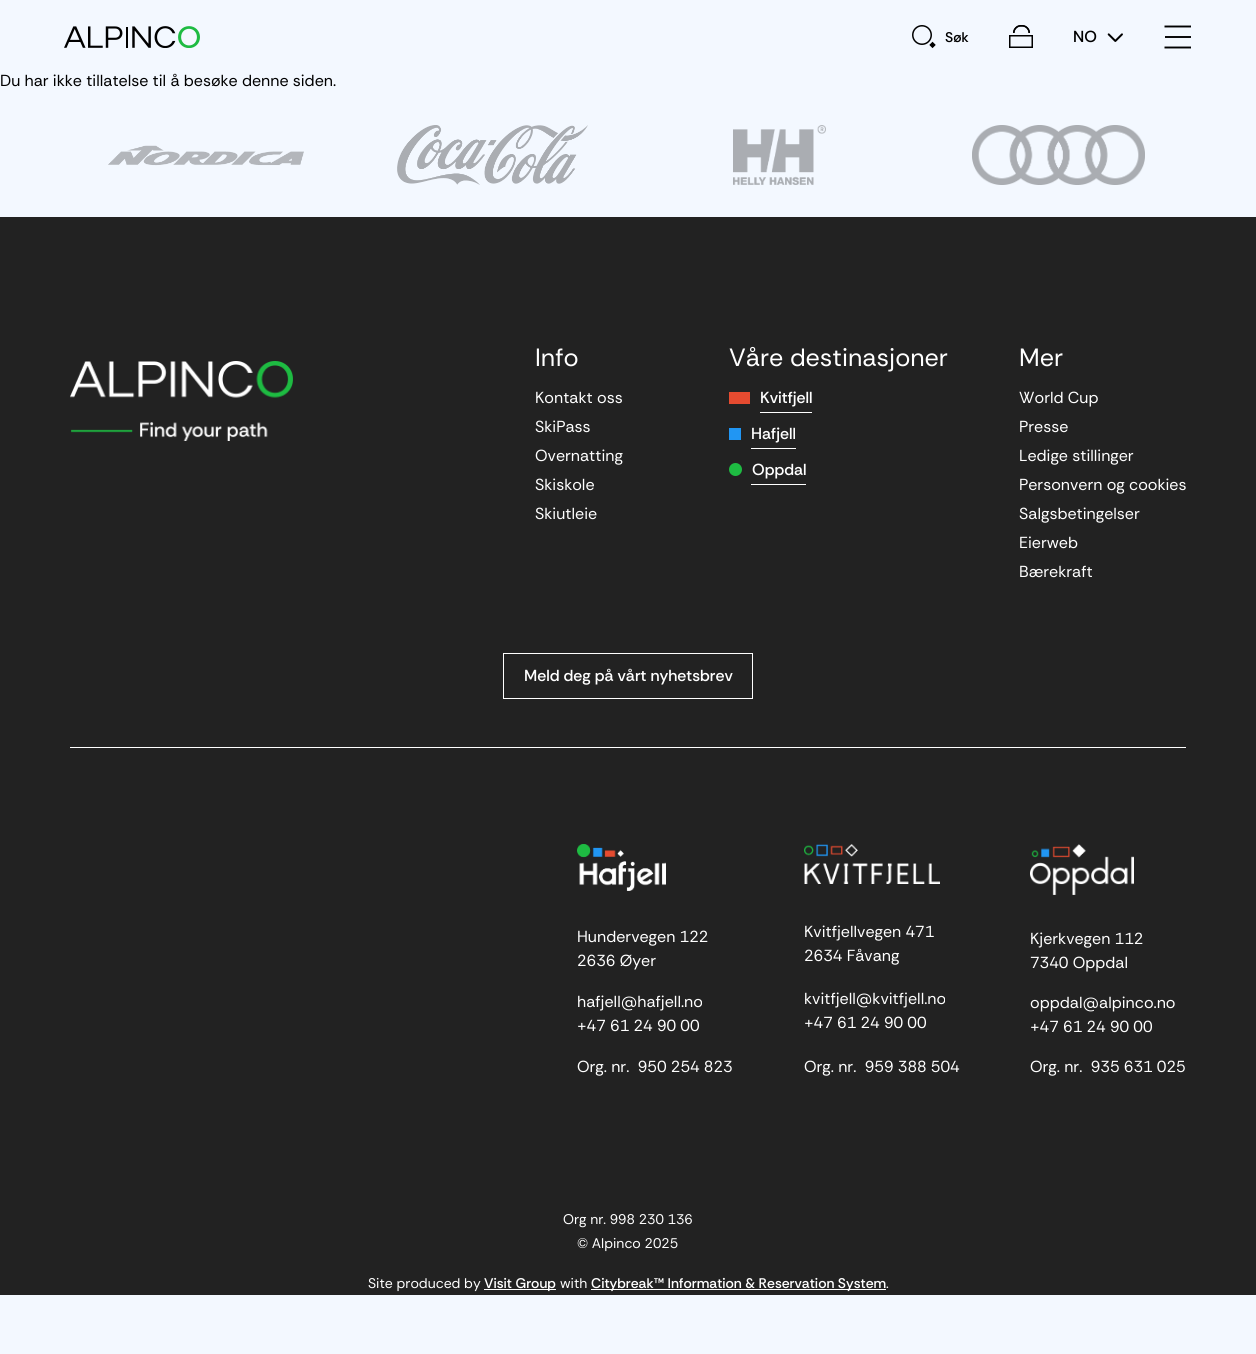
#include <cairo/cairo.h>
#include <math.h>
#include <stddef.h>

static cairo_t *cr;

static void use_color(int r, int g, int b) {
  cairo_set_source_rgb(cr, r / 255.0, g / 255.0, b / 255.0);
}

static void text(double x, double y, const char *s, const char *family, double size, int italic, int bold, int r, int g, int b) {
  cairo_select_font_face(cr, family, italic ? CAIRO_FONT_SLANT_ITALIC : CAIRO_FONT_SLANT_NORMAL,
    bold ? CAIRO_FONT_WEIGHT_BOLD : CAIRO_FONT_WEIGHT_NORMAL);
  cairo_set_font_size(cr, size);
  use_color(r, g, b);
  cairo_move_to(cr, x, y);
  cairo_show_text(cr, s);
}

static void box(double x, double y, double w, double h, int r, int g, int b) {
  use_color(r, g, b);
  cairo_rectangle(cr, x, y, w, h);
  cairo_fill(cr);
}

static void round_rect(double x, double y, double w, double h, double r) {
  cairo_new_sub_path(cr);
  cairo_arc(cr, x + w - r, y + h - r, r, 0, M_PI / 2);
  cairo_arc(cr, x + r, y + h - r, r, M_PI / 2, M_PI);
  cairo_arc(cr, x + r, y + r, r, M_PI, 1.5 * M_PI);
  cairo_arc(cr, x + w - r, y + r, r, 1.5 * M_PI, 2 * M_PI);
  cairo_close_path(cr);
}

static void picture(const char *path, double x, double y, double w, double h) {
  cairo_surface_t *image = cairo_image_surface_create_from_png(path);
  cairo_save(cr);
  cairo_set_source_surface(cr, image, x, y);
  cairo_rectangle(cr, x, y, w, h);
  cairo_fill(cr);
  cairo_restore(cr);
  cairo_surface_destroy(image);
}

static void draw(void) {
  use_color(243, 248, 255);
  cairo_paint(cr);
  picture("img_01.png", 64, 26, 136, 22);
  picture("img_02.png", 912, 25, 24, 24);
  cairo_rectangle(cr, 1009.75, 35.75, 22.5, 11.5);
  use_color(0, 0, 0);
  cairo_set_line_width(cr, 1.5);
  cairo_stroke(cr);
  cairo_save(cr);
  cairo_rectangle(cr, 1011, 25, 21, 8);
  cairo_clip(cr);
  round_rect(1013.75, 25.75, 15.5, 14.5, 7.25);
  cairo_stroke(cr);
  round_rect(1013.75, 25.75, 15.5, 14.5, 7.25);
  cairo_stroke(cr);
  cairo_restore(cr);
  picture("img_03.png", 1107, 33, 16, 9);
  cairo_new_path(cr);
  cairo_move_to(cr, 1164.5, 26.5);
  cairo_line_to(cr, 1191, 26.5);
  cairo_set_line_width(cr, 1.9);
  cairo_stroke(cr);
  box(1165, 36, 26, 2, 12, 12, 13);
  cairo_new_path(cr);
  cairo_move_to(cr, 1164.5, 47.5);
  cairo_line_to(cr, 1191, 47.5);
  use_color(0, 0, 0);
  cairo_stroke(cr);
  picture("img_04.png", 108, 145, 196, 21);
  picture("img_05.png", 397, 125, 191, 60);
  picture("img_06.png", 733, 125, 93, 60);
  picture("img_07.png", 972, 125, 173, 60);
  box(0, 217, 1256, 1078, 34, 34, 34);
  picture("img_08.png", 70, 361, 223, 80);
  box(729, 392, 21, 12, 229, 75, 48);
  box(760, 412, 52, 1, 255, 255, 255);
  box(729, 428, 12, 12, 33, 150, 243);
  box(751, 448, 45, 1, 255, 255, 255);
  use_color(30, 187, 66);
  cairo_arc(cr, 735.5, 469.5, 5.5, 0, 2 * M_PI);
  cairo_fill_preserve(cr);
  cairo_set_line_width(cr, 2);
  cairo_stroke(cr);
  box(751, 484, 55, 1, 255, 255, 255);
  cairo_rectangle(cr, 503.5, 653.5, 249, 45);
  cairo_set_line_width(cr, 1);
  cairo_stroke(cr);
  box(70, 747, 1116, 1, 255, 255, 255);
  picture("img_09.png", 577, 844, 89, 47);
  picture("img_10.png", 804, 844, 136, 40);
  picture("img_11.png", 1030, 844, 104, 51);
  box(484, 1289, 72, 1, 255, 255, 255);
  box(591, 1289, 295, 1, 255, 255, 255);
  text(945, 42, "Søk", "Rethink Sans Medium", 14, 0, 0, 0, 0, 0);
  text(1073, 42, "NO", "Rethink Sans Medium", 16, 0, 0, 0, 0, 0);
  text(0, 86, "Du har ikke tillatelse til å besøke denne siden.", "Rethink Sans", 16, 0, 0, 0, 0, 0);
  text(535, 366, "Info", "Rethink Sans", 25, 0, 0, 255, 255, 255);
  text(535, 403, "Kontakt oss", "Rethink Sans", 16, 0, 0, 255, 255, 255);
  text(535, 432, "SkiPass", "Rethink Sans", 16, 0, 0, 255, 255, 255);
  text(535, 461, "Overnatting", "Rethink Sans", 16, 0, 0, 255, 255, 255);
  text(535, 490, "Skiskole", "Rethink Sans", 16, 0, 0, 255, 255, 255);
  text(535, 519, "Skiutleie", "Rethink Sans", 16, 0, 0, 255, 255, 255);
  text(729, 366, "Våre destinasjoner", "Rethink Sans", 25, 0, 0, 255, 255, 255);
  text(760, 403, "Kvitfjell", "Rethink Sans Medium", 16, 0, 0, 255, 255, 255);
  text(751, 439, "Hafjell", "Rethink Sans Medium", 16, 0, 0, 255, 255, 255);
  text(752, 475, "Oppdal", "Rethink Sans Medium", 16, 0, 0, 255, 255, 255);
  text(1019, 366, "Mer", "Rethink Sans", 25, 0, 0, 255, 255, 255);
  text(1019, 403, "World Cup", "Rethink Sans", 16, 0, 0, 255, 255, 255);
  text(1019, 432, "Presse", "Rethink Sans", 16, 0, 0, 255, 255, 255);
  text(1019, 461, "Ledige stillinger", "Rethink Sans", 16, 0, 0, 255, 255, 255);
  text(1019, 490, "Personvern og cookies", "Rethink Sans", 16, 0, 0, 255, 255, 255);
  text(1019, 519, "Salgsbetingelser", "Rethink Sans", 16, 0, 0, 255, 255, 255);
  text(1019, 548, "Eierweb", "Rethink Sans", 16, 0, 0, 255, 255, 255);
  text(1019, 577, "Bærekraft", "Rethink Sans", 16, 0, 0, 255, 255, 255);
  text(524, 681, "Meld deg på vårt nyhetsbrev", "Rethink Sans Medium", 16, 0, 0, 255, 255, 255);
  text(577, 942, "Hundervegen 122", "Rethink Sans", 16, 0, 0, 255, 255, 255);
  text(577, 966, "2636 Øyer", "Rethink Sans", 16, 0, 0, 255, 255, 255);
  text(577, 1007, "hafjell@hafjell.no", "Rethink Sans", 16, 0, 0, 255, 255, 255);
  text(577, 1031, "+47 61 24 90 00", "Rethink Sans", 16, 0, 0, 255, 255, 255);
  text(577, 1072, "Org. nr.  950 254 823", "Rethink Sans", 16, 0, 0, 255, 255, 255);
  text(804, 937, "Kvitfjellvegen 471", "Rethink Sans", 16, 0, 0, 255, 255, 255);
  text(804, 961, "2634 Fåvang", "Rethink Sans", 16, 0, 0, 255, 255, 255);
  text(804, 1004, "kvitfjell@kvitfjell.no", "Rethink Sans", 16, 0, 0, 255, 255, 255);
  text(804, 1028, "+47 61 24 90 00", "Rethink Sans", 16, 0, 0, 255, 255, 255);
  text(804, 1072, "Org. nr.  959 388 504", "Rethink Sans", 16, 0, 0, 255, 255, 255);
  text(1030, 944, "Kjerkvegen 112", "Rethink Sans", 16, 0, 0, 255, 255, 255);
  text(1030, 968, "7340 Oppdal", "Rethink Sans", 16, 0, 0, 255, 255, 255);
  text(1030, 1008, "oppdal@alpinco.no", "Rethink Sans", 16, 0, 0, 255, 255, 255);
  text(1030, 1032, "+47 61 24 90 00", "Rethink Sans", 16, 0, 0, 255, 255, 255);
  text(1030, 1072, "Org. nr.  935 631 025", "Rethink Sans", 16, 0, 0, 255, 255, 255);
  text(563, 1224, "Org nr. 998 230 136", "Rethink Sans", 14, 0, 0, 255, 255, 255);
  text(577, 1248, "© Alpinco 2025", "Rethink Sans", 14, 0, 0, 255, 255, 255);
  text(368, 1288, "Site produced by", "Rethink Sans", 14, 0, 0, 255, 255, 255);
  text(484, 1288, "Visit Group", "Rethink Sans Medium", 14, 0, 0, 255, 255, 255);
  text(560, 1288, "with", "Rethink Sans", 14, 0, 0, 255, 255, 255);
  text(591, 1288, "Citybreak™ Information & Reservation System", "Rethink Sans Medium", 14, 0, 0, 255, 255, 255);
  text(886, 1288, ".", "Rethink Sans", 14, 0, 0, 255, 255, 255);
}

int main(void) {
  cairo_surface_t *surface = cairo_image_surface_create(CAIRO_FORMAT_RGB24, 1256, 1354);
  cr = cairo_create(surface);
  cairo_font_options_t *options = cairo_font_options_create();
  cairo_font_options_set_hint_metrics(options, CAIRO_HINT_METRICS_OFF);
  cairo_font_options_set_hint_style(options, CAIRO_HINT_STYLE_NONE);
  cairo_set_font_options(cr, options);
  cairo_set_miter_limit(cr, 4);
  draw();
  cairo_surface_write_to_png(surface, "out.png");
  cairo_font_options_destroy(options);
  cairo_destroy(cr);
  cairo_surface_destroy(surface);
  return 0;
}
